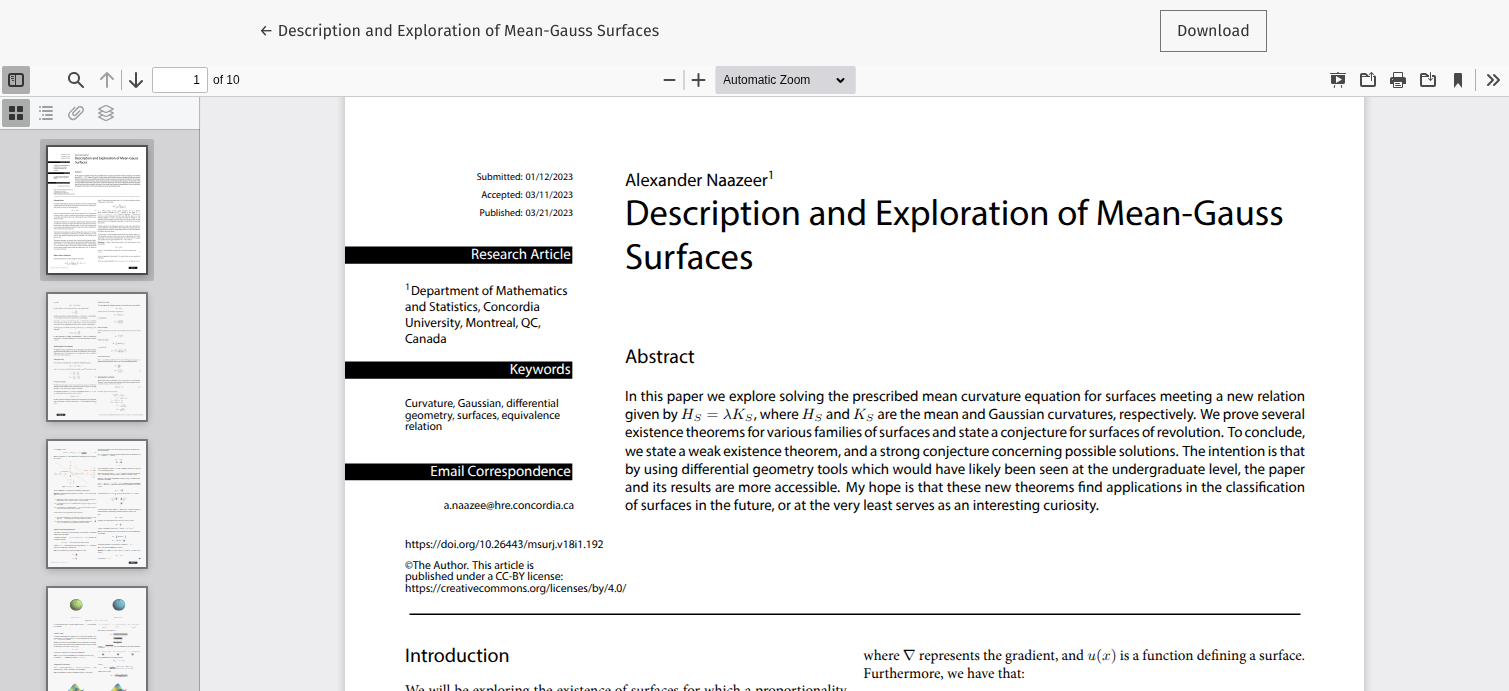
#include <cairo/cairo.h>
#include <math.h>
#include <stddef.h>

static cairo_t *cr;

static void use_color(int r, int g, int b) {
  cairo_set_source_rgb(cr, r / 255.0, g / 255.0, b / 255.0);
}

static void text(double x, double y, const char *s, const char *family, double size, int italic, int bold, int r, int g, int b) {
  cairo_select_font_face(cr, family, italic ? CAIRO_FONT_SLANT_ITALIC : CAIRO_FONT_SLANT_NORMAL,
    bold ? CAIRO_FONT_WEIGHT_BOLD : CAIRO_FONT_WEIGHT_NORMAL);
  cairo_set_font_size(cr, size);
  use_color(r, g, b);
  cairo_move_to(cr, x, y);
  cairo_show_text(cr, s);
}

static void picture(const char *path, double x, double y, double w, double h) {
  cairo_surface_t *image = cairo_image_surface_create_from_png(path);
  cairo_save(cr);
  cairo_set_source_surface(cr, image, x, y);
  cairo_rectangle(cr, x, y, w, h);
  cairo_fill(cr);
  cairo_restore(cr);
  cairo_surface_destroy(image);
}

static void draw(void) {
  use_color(247, 247, 247);
  cairo_paint(cr);
  cairo_rectangle(cr, 1160.5, 10.5, 106, 41);
  use_color(117, 117, 117);
  cairo_set_line_width(cr, 1);
  cairo_stroke(cr);
  picture("img_01.png", 0, 66, 1509, 625);
  text(259, 36, "← Description and Exploration of Mean-Gauss Surfaces", "Fira Sans", 16, 0, 0, 51, 51, 51);
  text(1177, 36, "Download", "Fira Sans", 16, 0, 0, 51, 51, 51);
}

int main(void) {
  cairo_surface_t *surface = cairo_image_surface_create(CAIRO_FORMAT_RGB24, 1509, 691);
  cr = cairo_create(surface);
  cairo_font_options_t *options = cairo_font_options_create();
  cairo_font_options_set_hint_metrics(options, CAIRO_HINT_METRICS_OFF);
  cairo_font_options_set_hint_style(options, CAIRO_HINT_STYLE_NONE);
  cairo_set_font_options(cr, options);
  cairo_set_miter_limit(cr, 4);
  draw();
  cairo_surface_write_to_png(surface, "out.png");
  cairo_font_options_destroy(options);
  cairo_destroy(cr);
  cairo_surface_destroy(surface);
  return 0;
}
